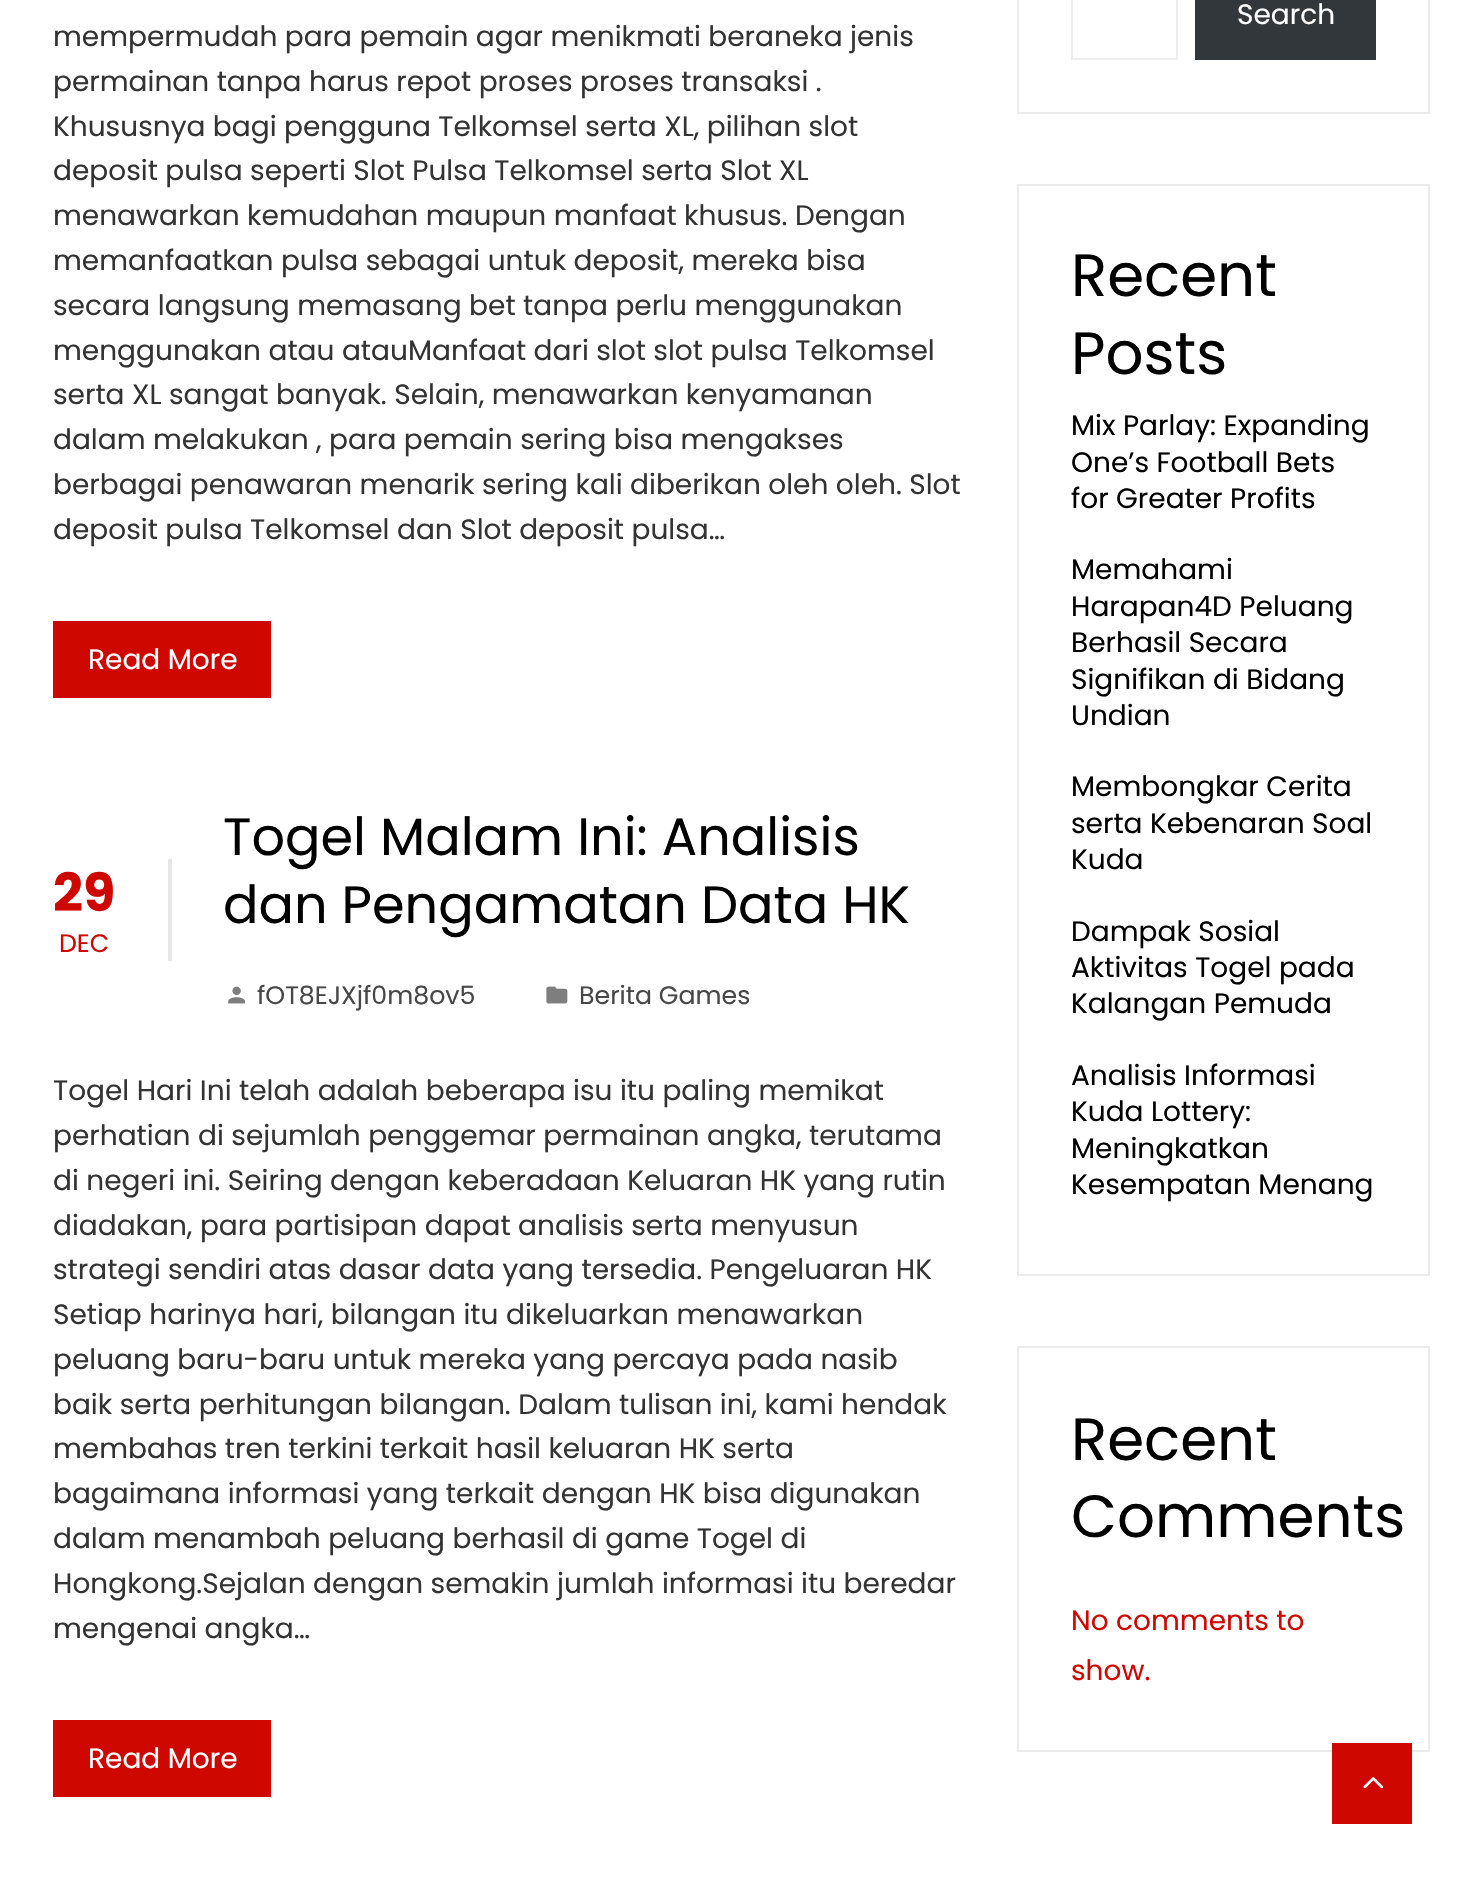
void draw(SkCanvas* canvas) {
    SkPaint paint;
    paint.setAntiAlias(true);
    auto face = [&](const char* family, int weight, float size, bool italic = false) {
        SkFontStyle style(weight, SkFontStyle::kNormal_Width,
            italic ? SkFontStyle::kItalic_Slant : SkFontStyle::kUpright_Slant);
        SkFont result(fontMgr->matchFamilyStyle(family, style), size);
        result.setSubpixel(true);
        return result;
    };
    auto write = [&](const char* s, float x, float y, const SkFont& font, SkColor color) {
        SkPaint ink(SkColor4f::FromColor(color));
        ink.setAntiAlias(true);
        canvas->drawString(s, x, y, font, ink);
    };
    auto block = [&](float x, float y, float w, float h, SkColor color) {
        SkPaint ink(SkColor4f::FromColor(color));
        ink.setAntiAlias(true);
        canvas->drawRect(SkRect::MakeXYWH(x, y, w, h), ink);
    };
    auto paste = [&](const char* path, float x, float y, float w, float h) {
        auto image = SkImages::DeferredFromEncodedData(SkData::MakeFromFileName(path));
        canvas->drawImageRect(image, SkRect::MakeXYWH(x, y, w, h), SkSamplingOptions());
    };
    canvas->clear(SK_ColorWHITE);
    auto kFont1 = face("Poppins", 400, 28);
    write("mempermudah para pemain agar menikmati beraneka jenis", 53, 46, kFont1, SkColorSetRGB(51, 51, 51));
    write("permainan tanpa harus repot proses proses transaksi .", 53, 91, kFont1, SkColorSetRGB(51, 51, 51));
    write("Khususnya bagi pengguna Telkomsel serta XL, pilihan slot", 53, 136, kFont1, SkColorSetRGB(51, 51, 51));
    write("deposit pulsa seperti Slot Pulsa Telkomsel serta Slot XL", 53, 180, kFont1, SkColorSetRGB(51, 51, 51));
    write("menawarkan kemudahan maupun manfaat khusus. Dengan", 53, 225, kFont1, SkColorSetRGB(51, 51, 51));
    write("memanfaatkan pulsa sebagai untuk deposit, mereka bisa", 53, 270, kFont1, SkColorSetRGB(51, 51, 51));
    write("secara langsung memasang bet tanpa perlu menggunakan", 53, 315, kFont1, SkColorSetRGB(51, 51, 51));
    write("menggunakan atau atauManfaat dari slot slot pulsa Telkomsel", 53, 360, kFont1, SkColorSetRGB(51, 51, 51));
    write("serta XL sangat banyak. Selain, menawarkan kenyamanan", 53, 404, kFont1, SkColorSetRGB(51, 51, 51));
    write("dalam melakukan , para pemain sering bisa mengakses", 53, 449, kFont1, SkColorSetRGB(51, 51, 51));
    write("berbagai penawaran menarik sering kali diberikan oleh oleh. Slot", 53, 494, kFont1, SkColorSetRGB(51, 51, 51));
    write("deposit pulsa Telkomsel dan Slot deposit pulsa…", 53, 539, kFont1, SkColorSetRGB(51, 51, 51));
    block(53, 621, 218, 77, SkColorSetRGB(207, 7, 1));
    write("Read More", 88, 669, kFont1, SK_ColorWHITE);
    block(168, 859, 4, 102, SkColorSetRGB(230, 230, 230));
    auto kFont2 = face("Poppins", 700, 52.5f);
    write("29", 53, 911, kFont2, SkColorSetRGB(207, 7, 1));
    auto kFont3 = face("Poppins", 400, 25.25f);
    write("DEC", 59, 952, kFont3, SkColorSetRGB(207, 7, 1));
    auto kFont4 = face("Poppins", 400, 52.5f);
    write("Togel Malam Ini: Analisis", 223, 855, kFont4, SK_ColorBLACK);
    write("dan Pengamatan Data HK", 223, 923, kFont4, SK_ColorBLACK);
    paste("pic1.png", 228, 986, 17, 18);
    write("fOT8EJXjf0m8ov5", 257, 1004, kFont3, SkColorSetRGB(71, 71, 71));
    paste("pic2.png", 546, 986, 22, 18);
    write("Berita Games", 579, 1004, kFont3, SkColorSetRGB(71, 71, 71));
    write("Togel Hari Ini telah adalah beberapa isu itu paling memikat", 53, 1100, kFont1, SkColorSetRGB(51, 51, 51));
    write("perhatian di sejumlah penggemar permainan angka, terutama", 53, 1145, kFont1, SkColorSetRGB(51, 51, 51));
    write("di negeri ini. Seiring dengan keberadaan Keluaran HK yang rutin", 53, 1190, kFont1, SkColorSetRGB(51, 51, 51));
    write("diadakan, para partisipan dapat analisis serta menyusun", 53, 1235, kFont1, SkColorSetRGB(51, 51, 51));
    write("strategi sendiri atas dasar data yang tersedia. Pengeluaran HK", 53, 1279, kFont1, SkColorSetRGB(51, 51, 51));
    write("Setiap harinya hari, bilangan itu dikeluarkan menawarkan", 53, 1324, kFont1, SkColorSetRGB(51, 51, 51));
    write("peluang baru-baru untuk mereka yang percaya pada nasib", 53, 1369, kFont1, SkColorSetRGB(51, 51, 51));
    write("baik serta perhitungan bilangan. Dalam tulisan ini, kami hendak", 53, 1414, kFont1, SkColorSetRGB(51, 51, 51));
    write("membahas tren terkini terkait hasil keluaran HK serta", 53, 1458, kFont1, SkColorSetRGB(51, 51, 51));
    write("bagaimana informasi yang terkait dengan HK bisa digunakan", 53, 1503, kFont1, SkColorSetRGB(51, 51, 51));
    write("dalam menambah peluang berhasil di game Togel di", 53, 1548, kFont1, SkColorSetRGB(51, 51, 51));
    write("Hongkong.Sejalan dengan semakin jumlah informasi itu beredar", 53, 1593, kFont1, SkColorSetRGB(51, 51, 51));
    write("mengenai angka…", 53, 1638, kFont1, SkColorSetRGB(51, 51, 51));
    block(53, 1720, 218, 77, SkColorSetRGB(207, 7, 1));
    write("Read More", 88, 1768, kFont1, SK_ColorWHITE);
    paint.setStyle(SkPaint::kStroke_Style);
    paint.setStrokeWidth(2);
    paint.setColor(SkColorSetRGB(235, 235, 235));
    canvas->drawRect(SkRect::MakeXYWH(1018, -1, 411, 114), paint);
    paint.setColor(SkColorSetRGB(238, 238, 238));
    canvas->drawRect(SkRect::MakeXYWH(1072, -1, 105, 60), paint);
    block(1195, 0, 181, 60, SkColorSetRGB(50, 55, 60));
    write("Search", 1237, 24, kFont1, SK_ColorWHITE);
    paint.setColor(SkColorSetRGB(235, 235, 235));
    canvas->drawRect(SkRect::MakeXYWH(1018, 185, 411, 1090), paint);
    auto kFont5 = face("Poppins", 400, 59.5f);
    write("Recent", 1071, 296, kFont5, SK_ColorBLACK);
    write("Posts", 1071, 374, kFont5, SK_ColorBLACK);
    write("Mix Parlay: Expanding", 1071, 435, kFont1, SK_ColorBLACK);
    write("One’s Football Bets", 1071, 472, kFont1, SK_ColorBLACK);
    write("for Greater Profits", 1071, 508, kFont1, SK_ColorBLACK);
    write("Memahami", 1071, 579, kFont1, SK_ColorBLACK);
    write("Harapan4D Peluang", 1071, 616, kFont1, SK_ColorBLACK);
    write("Berhasil Secara", 1071, 652, kFont1, SK_ColorBLACK);
    write("Signifikan di Bidang", 1071, 689, kFont1, SK_ColorBLACK);
    write("Undian", 1071, 725, kFont1, SK_ColorBLACK);
    write("Membongkar Cerita", 1071, 796, kFont1, SK_ColorBLACK);
    write("serta Kebenaran Soal", 1071, 833, kFont1, SK_ColorBLACK);
    write("Kuda", 1071, 869, kFont1, SK_ColorBLACK);
    write("Dampak Sosial", 1071, 941, kFont1, SK_ColorBLACK);
    write("Aktivitas Togel pada", 1071, 977, kFont1, SK_ColorBLACK);
    write("Kalangan Pemuda", 1071, 1013, kFont1, SK_ColorBLACK);
    write("Analisis Informasi", 1071, 1085, kFont1, SK_ColorBLACK);
    write("Kuda Lottery:", 1071, 1121, kFont1, SK_ColorBLACK);
    write("Meningkatkan", 1071, 1158, kFont1, SK_ColorBLACK);
    write("Kesempatan Menang", 1071, 1194, kFont1, SK_ColorBLACK);
    canvas->drawRect(SkRect::MakeXYWH(1018, 1347, 411, 404), paint);
    write("Recent", 1071, 1460, kFont5, SK_ColorBLACK);
    write("Comments", 1071, 1537, kFont5, SK_ColorBLACK);
    write("No comments to", 1071, 1630, kFont1, SkColorSetRGB(207, 7, 1));
    write("show.", 1071, 1680, kFont1, SkColorSetRGB(207, 7, 1));
    block(1332, 1743, 80, 81, SkColorSetRGB(207, 7, 1));
    paste("pic3.png", 1363, 1777, 21, 12);
}
